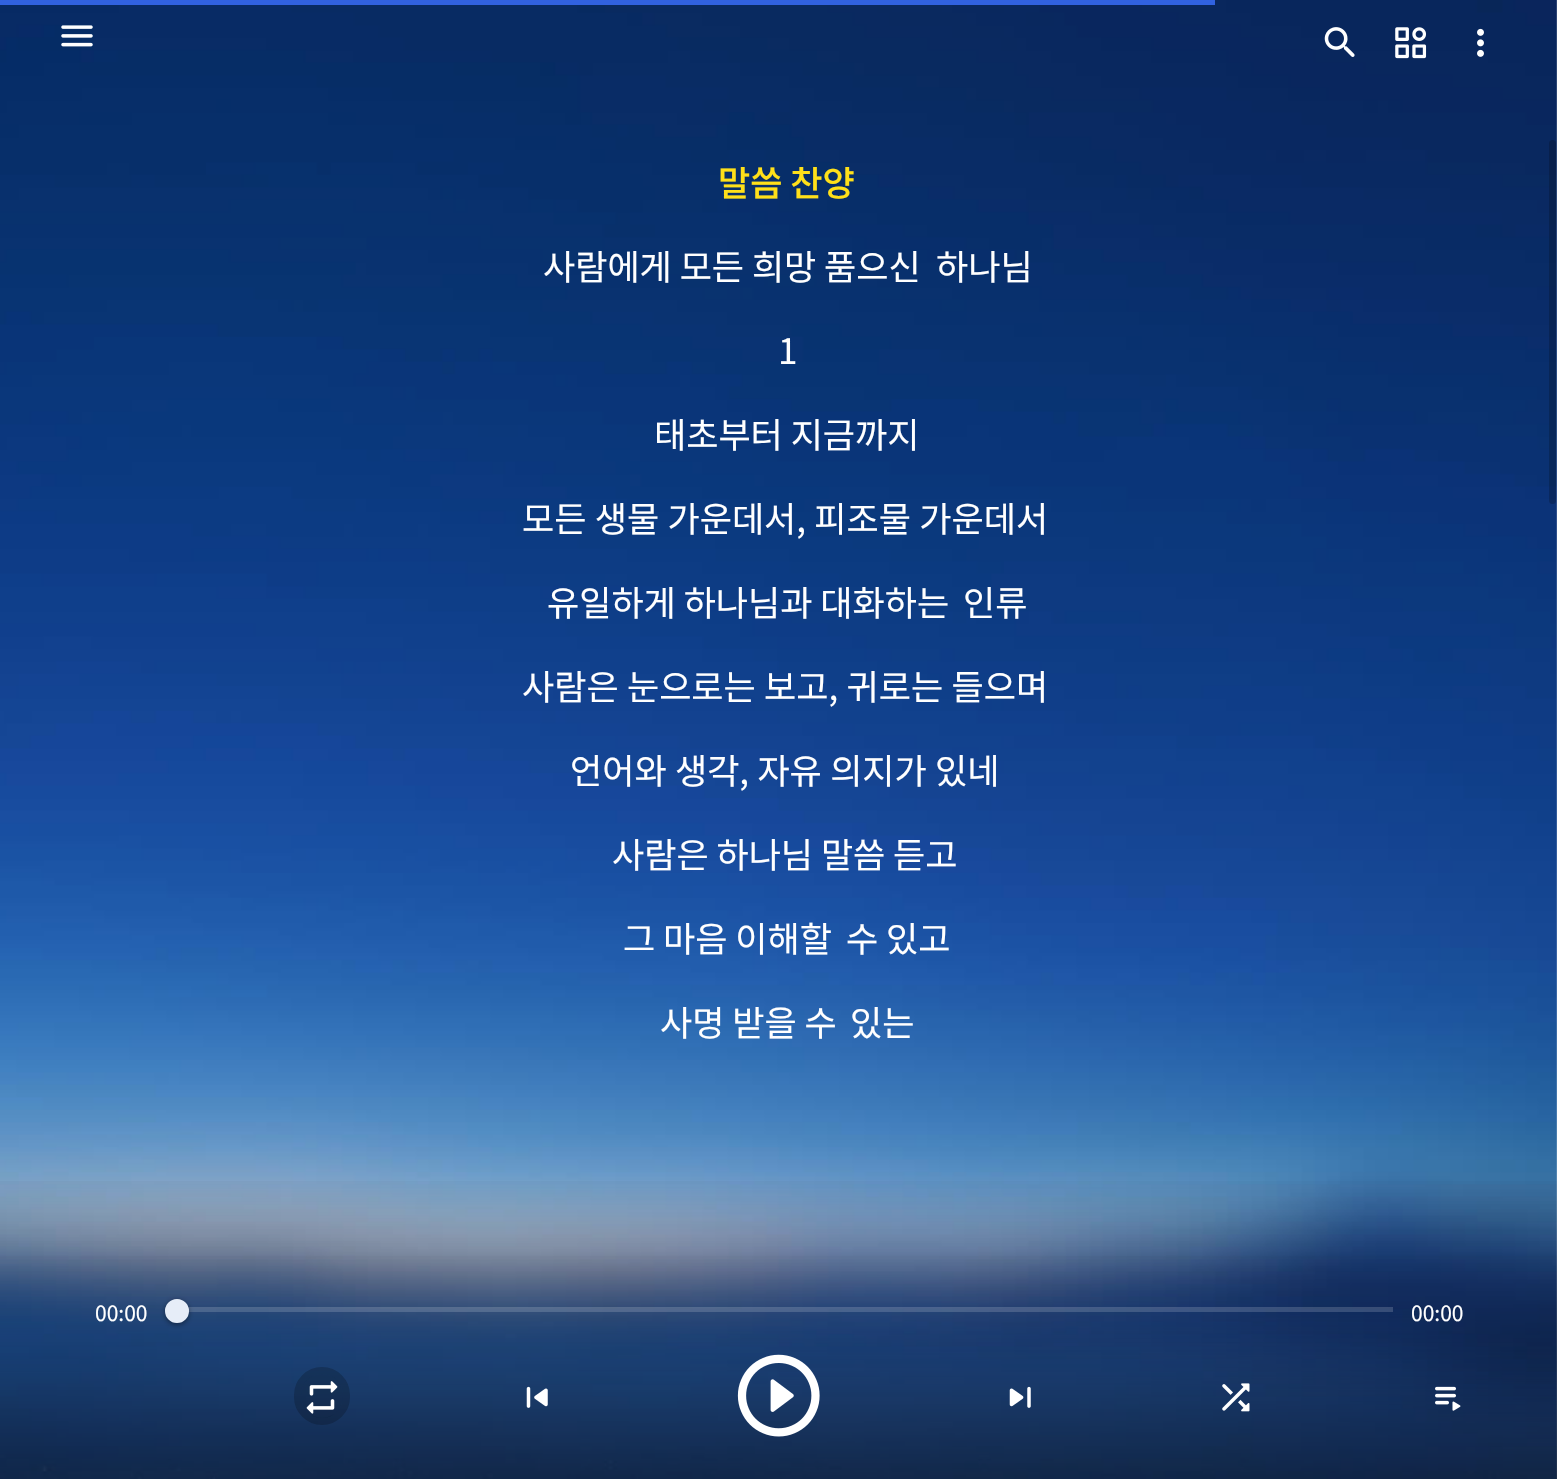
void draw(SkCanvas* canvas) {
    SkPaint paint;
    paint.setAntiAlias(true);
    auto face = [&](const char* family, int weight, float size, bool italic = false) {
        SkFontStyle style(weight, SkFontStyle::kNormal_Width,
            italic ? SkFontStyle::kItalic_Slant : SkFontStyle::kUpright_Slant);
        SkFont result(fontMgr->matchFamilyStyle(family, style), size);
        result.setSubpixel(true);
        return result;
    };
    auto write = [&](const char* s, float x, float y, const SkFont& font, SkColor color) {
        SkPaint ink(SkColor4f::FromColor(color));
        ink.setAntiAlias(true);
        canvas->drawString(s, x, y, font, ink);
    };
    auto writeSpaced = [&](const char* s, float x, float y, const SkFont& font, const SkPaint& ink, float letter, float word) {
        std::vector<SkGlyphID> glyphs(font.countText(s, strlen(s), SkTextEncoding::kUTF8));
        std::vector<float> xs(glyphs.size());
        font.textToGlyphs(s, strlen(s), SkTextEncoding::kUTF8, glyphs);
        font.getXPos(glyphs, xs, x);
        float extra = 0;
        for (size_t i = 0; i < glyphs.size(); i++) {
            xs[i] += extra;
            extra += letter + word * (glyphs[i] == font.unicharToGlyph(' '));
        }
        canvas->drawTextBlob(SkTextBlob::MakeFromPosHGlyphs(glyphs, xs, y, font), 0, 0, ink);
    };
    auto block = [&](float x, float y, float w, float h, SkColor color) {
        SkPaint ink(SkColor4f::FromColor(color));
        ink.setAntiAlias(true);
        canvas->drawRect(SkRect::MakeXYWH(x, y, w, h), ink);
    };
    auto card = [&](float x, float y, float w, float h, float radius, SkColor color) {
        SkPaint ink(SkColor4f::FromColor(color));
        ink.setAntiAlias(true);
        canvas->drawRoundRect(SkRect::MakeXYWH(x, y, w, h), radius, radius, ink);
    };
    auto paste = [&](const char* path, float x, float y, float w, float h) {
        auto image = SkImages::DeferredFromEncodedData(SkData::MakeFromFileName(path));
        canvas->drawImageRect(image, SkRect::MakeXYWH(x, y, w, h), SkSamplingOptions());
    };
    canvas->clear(SK_ColorWHITE);
    paste("pic1.png", 0, 0, 1557, 1479);
    block(0, 0, 1215, 5, SkColorSetRGB(49, 98, 224));
    paste("pic2.png", 61, 25, 32, 22);
    paste("pic3.png", 1324, 27, 31, 30);
    paste("pic4.png", 1395, 27, 32, 32);
    paste("pic5.png", 1477, 28, 7, 29);
    auto kFont1 = face("Noto Sans KR", 500, 35);
    write("말씀 찬양", 718, 196, kFont1, SkColorSetRGB(255, 224, 25));
    auto kFont2 = face("Noto Sans KR", 400, 35);
    write("사람에게 모든 희망 품으신", 543, 280, kFont2, SK_ColorWHITE);
    write("하나님", 936, 280, kFont2, SK_ColorWHITE);
    write("1", 778, 364, kFont2, SK_ColorWHITE);
    write("태초부터 지금까지", 654, 448, kFont2, SK_ColorWHITE);
    paint.setColor(SK_ColorWHITE);
    writeSpaced("모든 생물 가운데서, 피조물 가운데서", 522, 532, kFont2, paint, 0, 0.5f);
    write("유일하게 하나님과 대화하는", 547, 616, kFont2, SK_ColorWHITE);
    write("인류", 963, 616, kFont2, SK_ColorWHITE);
    writeSpaced("사람은 눈으로는 보고, 귀로는 들으며", 522, 700, kFont2, paint, 0, 0.5f);
    writeSpaced("언어와 생각, 자유 의지가 있네", 570, 784, kFont2, paint, 0, 0.5f);
    write("사람은 하나님 말씀 듣고", 612, 868, kFont2, SK_ColorWHITE);
    write("그 마음 이해할", 623, 952, kFont2, SK_ColorWHITE);
    write("수 있고", 846, 952, kFont2, SK_ColorWHITE);
    write("사명 받을 수", 660, 1036, kFont2, SK_ColorWHITE);
    write("있는", 850, 1036, kFont2, SK_ColorWHITE);
    card(1549, 140, 7, 364, 3.5f, SkColorSetARGB(51, 0, 0, 0));
    {
        const SkColor colors[] = {SkColorSetARGB(0, 0, 0, 0), SkColorSetARGB(66, 0, 0, 0)};
        const float stops[] = {0, 1};
        const SkPoint ends[] = {{779, 1236}, {779, 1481}};
        paint.setShader(SkGradientShader::MakeLinear(ends, colors, stops, 2, SkTileMode::kClamp));
        paint.setAlpha(255);
    }
    canvas->drawRect(SkRect::MakeXYWH(0, 1256, 1557, 223), paint);
    {
        const SkColor colors[] = {SkColorSetARGB(0, 0, 0, 0), SkColorSetARGB(112, 0, 0, 0)};
        const float stops[] = {0, 1};
        const SkPoint ends[] = {{779, 1166}, {779, 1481}};
        paint.setShader(SkGradientShader::MakeLinear(ends, colors, stops, 2, SkTileMode::kClamp));
        paint.setAlpha(255);
    }
    canvas->drawRect(SkRect::MakeXYWH(0, 1181, 1557, 298), paint);
    auto kFont3 = face("Noto Sans KR", 400, 21);
    write("00:00", 95, 1321, kFont3, SK_ColorWHITE);
    block(165, 1307, 1228, 5, SkColorSetARGB(41, 255, 255, 255));
    paint.setShader(nullptr);
    paint.setColor(SkColorSetARGB(97, 0, 0, 0));
    paint.setMaskFilter(SkMaskFilter::MakeBlur(kNormal_SkBlurStyle, 2.5f));
    canvas->drawRoundRect(SkRect::MakeXYWH(165, 1300, 24, 25), 12, 12, paint);
    paint.setMaskFilter(nullptr);
    paint.setColor(SK_ColorWHITE);
    canvas->drawCircle(177, 1311, 9.5f, paint);
    paint.setStyle(SkPaint::kStroke_Style);
    paint.setStrokeWidth(5);
    canvas->drawCircle(177, 1311, 9.5f, paint);
    paint.setStyle(SkPaint::kFill_Style);
    paint.setColor(SkColorSetARGB(26, 5, 80, 191));
    canvas->drawCircle(177, 1311, 12, paint);
    write("00:00", 1411, 1321, kFont3, SK_ColorWHITE);
    paint.setStyle(SkPaint::kStroke_Style);
    paint.setStrokeWidth(7);
    paint.setColor(SkColorSetARGB(51, 0, 0, 0));
    canvas->drawRoundRect(SkRect::MakeXYWH(297.5f, 1370.5f, 49, 51), 24.5f, 24.5f, paint);
    card(301, 1374, 42, 44, 21, SkColorSetARGB(51, 0, 0, 0));
    paste("pic6.png", 306, 1381, 32, 33);
    paste("pic7.png", 526, 1386, 22, 22);
    paste("pic8.png", 737, 1354, 83, 83);
    paste("pic9.png", 1009, 1386, 22, 22);
    paste("pic10.png", 1222, 1383, 28, 29);
    paste("pic11.png", 1435, 1386, 26, 25);
}
